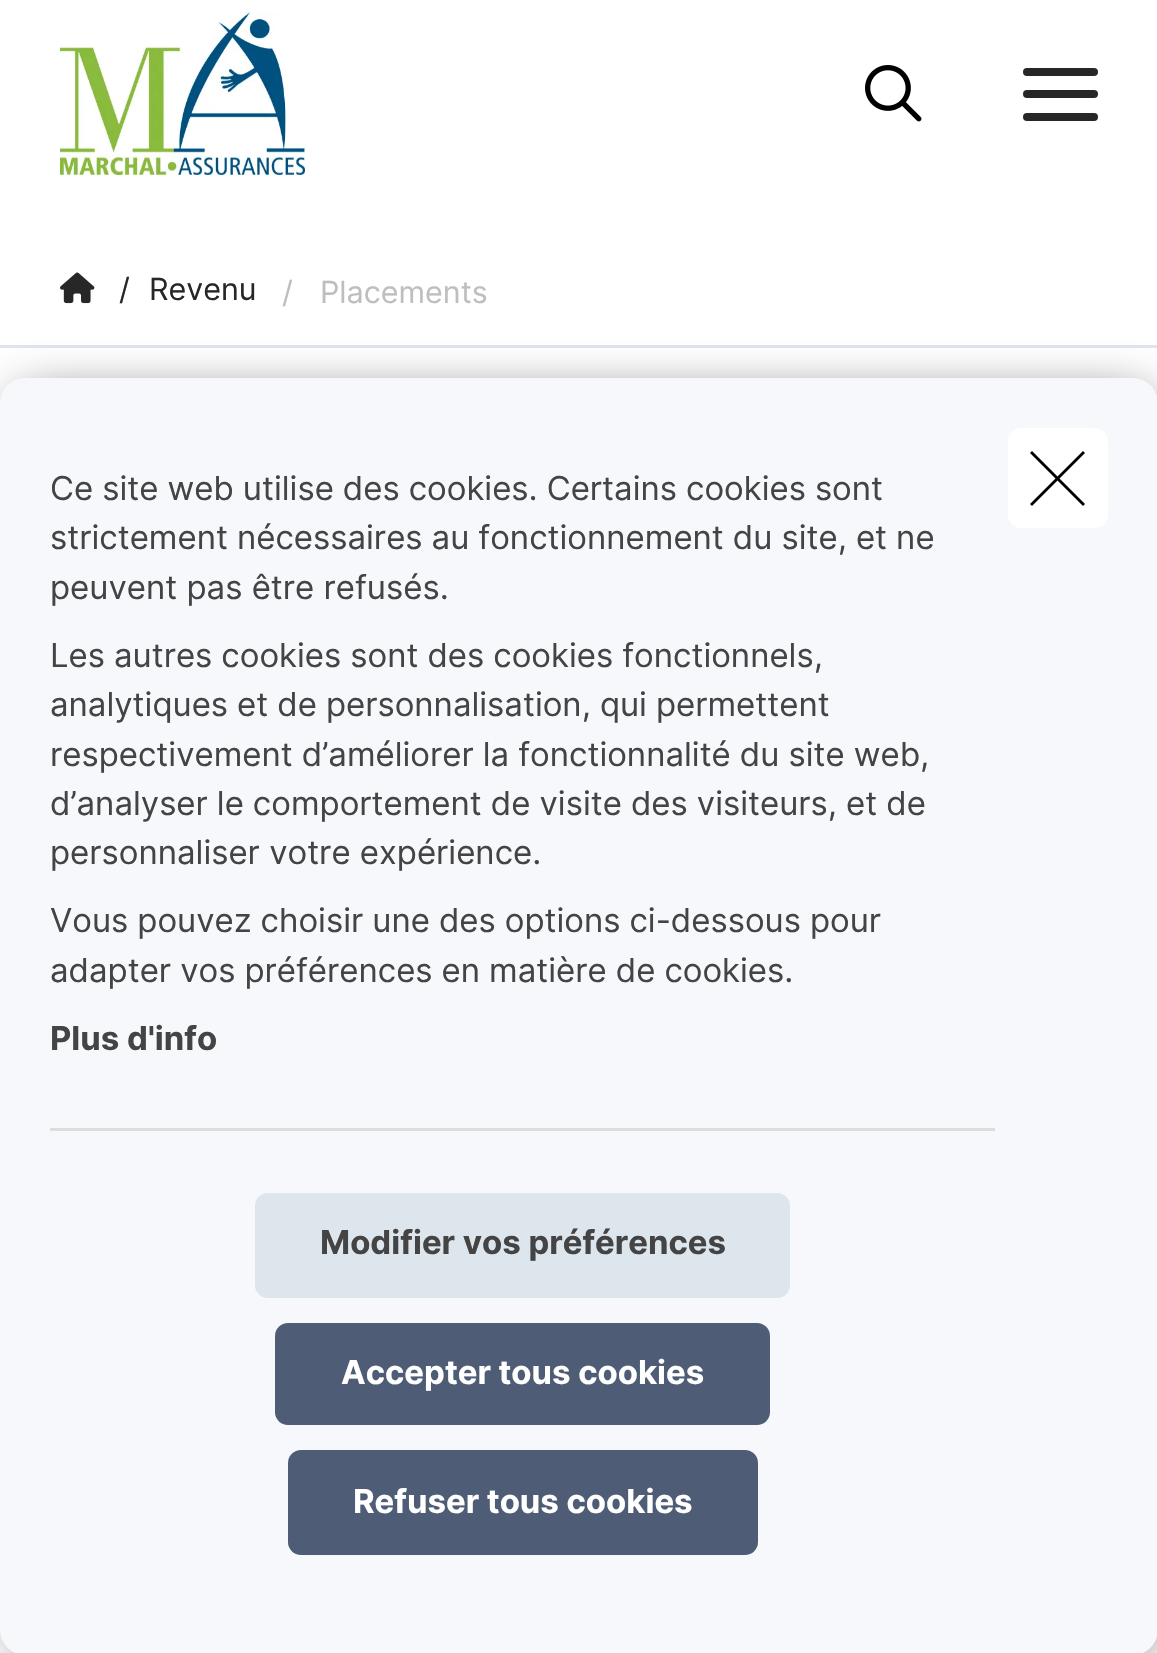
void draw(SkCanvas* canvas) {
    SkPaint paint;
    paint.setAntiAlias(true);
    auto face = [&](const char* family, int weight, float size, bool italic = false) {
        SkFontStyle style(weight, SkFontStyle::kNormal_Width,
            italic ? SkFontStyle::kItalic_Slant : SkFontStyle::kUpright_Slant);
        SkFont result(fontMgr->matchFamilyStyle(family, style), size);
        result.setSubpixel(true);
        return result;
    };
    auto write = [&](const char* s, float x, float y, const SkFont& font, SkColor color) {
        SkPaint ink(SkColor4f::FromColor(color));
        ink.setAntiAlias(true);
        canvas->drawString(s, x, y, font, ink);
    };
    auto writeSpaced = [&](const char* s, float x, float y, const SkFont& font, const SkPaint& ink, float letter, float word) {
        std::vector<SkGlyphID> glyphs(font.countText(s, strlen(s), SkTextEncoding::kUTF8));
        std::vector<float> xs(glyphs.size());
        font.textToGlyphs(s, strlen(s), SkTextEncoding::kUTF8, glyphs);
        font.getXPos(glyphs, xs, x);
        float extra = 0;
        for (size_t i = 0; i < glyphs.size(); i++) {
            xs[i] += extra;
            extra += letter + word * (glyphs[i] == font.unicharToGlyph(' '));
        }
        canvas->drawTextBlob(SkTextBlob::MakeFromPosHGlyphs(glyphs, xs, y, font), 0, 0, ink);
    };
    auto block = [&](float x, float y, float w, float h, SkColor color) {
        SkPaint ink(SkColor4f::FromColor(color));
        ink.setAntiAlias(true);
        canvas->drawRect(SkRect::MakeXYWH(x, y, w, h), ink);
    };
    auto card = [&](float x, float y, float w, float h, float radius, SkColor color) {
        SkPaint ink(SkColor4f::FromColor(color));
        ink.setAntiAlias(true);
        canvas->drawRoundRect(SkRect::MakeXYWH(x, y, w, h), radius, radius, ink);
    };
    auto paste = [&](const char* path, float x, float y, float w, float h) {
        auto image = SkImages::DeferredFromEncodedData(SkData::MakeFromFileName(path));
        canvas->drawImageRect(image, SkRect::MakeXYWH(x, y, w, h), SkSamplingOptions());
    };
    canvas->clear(SK_ColorWHITE);
    paste("pic1.png", 60, 12, 245, 163);
    paste("pic2.png", 865, 65, 57, 57);
    card(1023, 90, 75, 8, 4, SkColorSetRGB(39, 39, 39));
    card(1023, 68, 75, 8, 4, SkColorSetRGB(39, 39, 39));
    card(1023, 113, 75, 8, 4, SkColorSetRGB(39, 39, 39));
    block(0, 345, 1157, 3, SkColorSetRGB(222, 229, 236));
    paste("pic3.png", 60, 272, 35, 32);
    auto kFont1 = face("Inter", 400, 30.5f);
    write("/", 119, 300, kFont1, SkColorSetRGB(39, 39, 39));
    write("Revenu", 149, 300, kFont1, SkColorSetRGB(39, 39, 39));
    write("/", 282, 303, kFont1, SkColorSetRGB(190, 190, 190));
    write("Placements", 320, 303, kFont1, SkColorSetRGB(190, 190, 190));
    paint.setColor(SkColorSetARGB(191, 0, 0, 0));
    paint.setMaskFilter(SkMaskFilter::MakeBlur(kNormal_SkBlurStyle, 26));
    canvas->drawRoundRect(SkRect::MakeXYWH(20, 400, 1128, 1248), 10, 10, paint);
    paint.setMaskFilter(nullptr);
    card(0, 378, 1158, 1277, 25, SkColorSetRGB(246, 248, 252));
    block(50, 1128, 945, 3, SkColorSetRGB(221, 221, 221));
    auto kFont2 = face("Inter", 400, 32.95f);
    paint.setColor(SkColorSetRGB(68, 68, 68));
    writeSpaced("Ce site web utilise des cookies. Certains cookies sont", 50, 500, kFont2, paint, 0, -0.25f);
    writeSpaced("strictement nécessaires au fonctionnement du site, et ne", 50, 549, kFont2, paint, 0, -0.25f);
    write("peuvent pas être refusés.", 50, 599, kFont2, SkColorSetRGB(68, 68, 68));
    writeSpaced("Les autres cookies sont des cookies fonctionnels,", 50, 667, kFont2, paint, 0, -0.25f);
    writeSpaced("analytiques et de personnalisation, qui permettent", 50, 716, kFont2, paint, 0, -0.25f);
    writeSpaced("respectivement d’améliorer la fonctionnalité du site web,", 50, 766, kFont2, paint, 0, -0.25f);
    writeSpaced("d’analyser le comportement de visite des visiteurs, et de", 50, 815, kFont2, paint, 0, -0.25f);
    write("personnaliser votre expérience.", 50, 864, kFont2, SkColorSetRGB(68, 68, 68));
    writeSpaced("Vous pouvez choisir une des options ci-dessous pour", 50, 932, kFont2, paint, 0, -0.25f);
    writeSpaced("adapter vos préférences en matière de cookies.", 50, 982, kFont2, paint, 0, -0.25f);
    auto kFont3 = face("Inter", 700, 32.95f);
    write("Plus d'info", 50, 1050, kFont3, SkColorSetRGB(68, 68, 68));
    card(255, 1193, 535, 105, 13, SkColorSetRGB(221, 229, 237));
    write("Modifier vos préférences", 320, 1254, kFont3, SkColorSetRGB(68, 68, 68));
    card(275, 1323, 495, 102, 13, SkColorSetRGB(78, 92, 118));
    write("Accepter tous cookies", 341, 1384, kFont3, SK_ColorWHITE);
    card(288, 1450, 470, 105, 13, SkColorSetRGB(78, 92, 118));
    write("Refuser tous cookies", 353, 1513, kFont3, SK_ColorWHITE);
    card(1008, 428, 100, 100, 13, SK_ColorWHITE);
    paint.setColor(SK_ColorBLACK);
    canvas->drawPath(SkPathBuilder().moveTo(1032, 451).lineTo(1085, 504).lineTo(1083, 506).lineTo(1030, 453).close().detach(), paint);
    canvas->drawPath(SkPathBuilder().moveTo(1030, 504).lineTo(1083, 451).lineTo(1085, 453).lineTo(1032, 506).close().detach(), paint);
}
